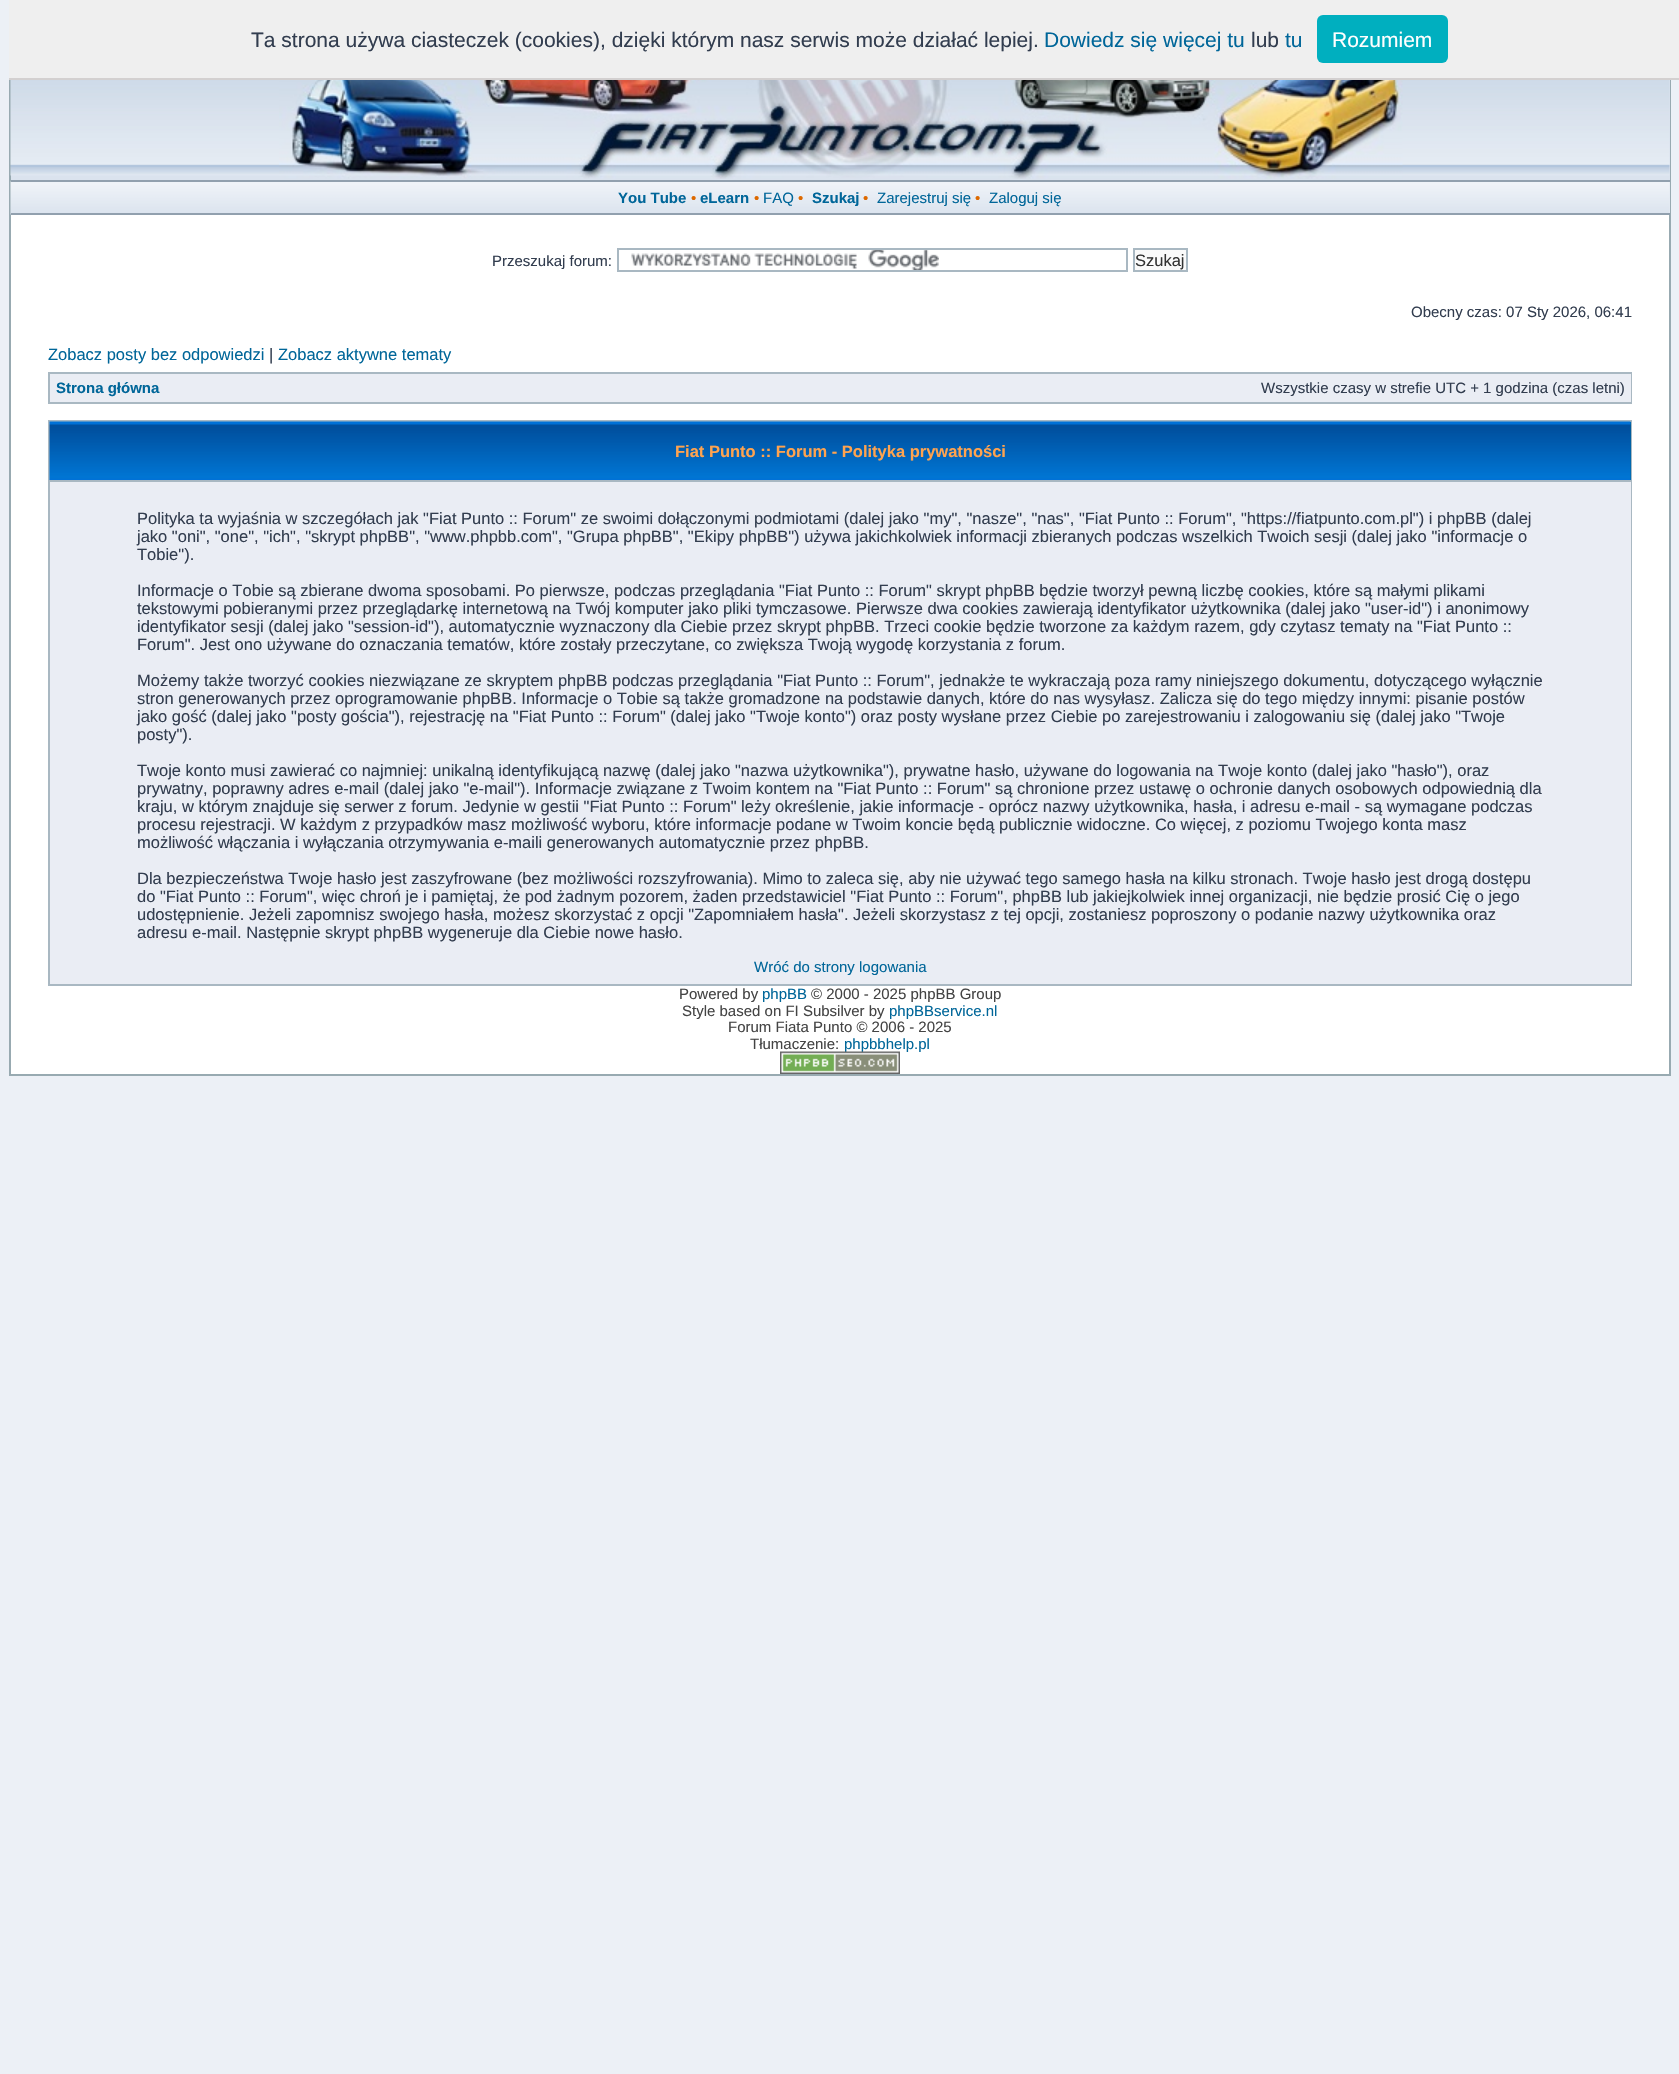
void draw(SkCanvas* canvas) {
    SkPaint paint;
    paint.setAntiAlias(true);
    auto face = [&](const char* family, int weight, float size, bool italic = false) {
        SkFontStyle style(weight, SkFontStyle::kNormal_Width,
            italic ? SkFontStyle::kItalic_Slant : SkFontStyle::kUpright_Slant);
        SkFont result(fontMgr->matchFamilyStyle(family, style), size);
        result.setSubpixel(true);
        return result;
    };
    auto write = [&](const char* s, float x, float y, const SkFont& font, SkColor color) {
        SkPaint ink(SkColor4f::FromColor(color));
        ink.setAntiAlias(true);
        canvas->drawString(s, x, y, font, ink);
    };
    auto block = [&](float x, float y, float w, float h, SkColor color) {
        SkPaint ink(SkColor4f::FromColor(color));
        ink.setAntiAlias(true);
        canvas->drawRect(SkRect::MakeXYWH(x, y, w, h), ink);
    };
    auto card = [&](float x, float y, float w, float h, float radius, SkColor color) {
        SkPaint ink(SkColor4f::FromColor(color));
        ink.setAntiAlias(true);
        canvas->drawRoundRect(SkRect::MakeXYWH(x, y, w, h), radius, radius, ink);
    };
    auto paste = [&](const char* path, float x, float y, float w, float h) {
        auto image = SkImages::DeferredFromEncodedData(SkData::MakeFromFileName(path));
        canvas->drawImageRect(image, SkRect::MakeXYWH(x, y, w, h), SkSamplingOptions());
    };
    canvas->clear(SkColorSetRGB(236, 240, 246));
    block(11, 215, 1658, 859, SK_ColorWHITE);
    paint.setStyle(SkPaint::kStroke_Style);
    paint.setStrokeWidth(2);
    paint.setColor(SkColorSetRGB(152, 170, 177));
    canvas->drawRect(SkRect::MakeXYWH(10, 10, 1660, 1065), paint);
    block(9, 0, 1670, 78, SkColorSetRGB(239, 239, 239));
    block(9, 78, 1670, 2, SkColorSetRGB(211, 208, 208));
    auto kFont1 = face("Liberation Sans", 400, 21);
    write("Ta strona używa ciasteczek (cookies), dzięki którym nasz serwis może działać lepiej.", 251, 47, kFont1, SkColorSetRGB(50, 61, 79));
    write("Dowiedz się więcej tu", 1044, 47, kFont1, SkColorSetRGB(0, 102, 153));
    write("lub", 1251, 47, kFont1, SkColorSetRGB(50, 61, 79));
    write("tu", 1285, 47, kFont1, SkColorSetRGB(0, 102, 153));
    card(1317, 15, 131, 48, 6, SkColorSetRGB(0, 175, 191));
    write("Rozumiem", 1332, 47, kFont1, SK_ColorWHITE);
    block(11, 80, 1659, 100, SkColorSetRGB(219, 227, 238));
    paste("pic1.png", 10, 80, 1660, 96);
    paste("pic2.png", 279, 80, 1124, 99);
    block(1669, 182, 1, 31, SkColorSetRGB(229, 235, 243));
    paste("pic3.png", 10, 181, 1660, 34);
    block(11, 180, 1659, 2, SkColorSetRGB(145, 160, 174));
    block(11, 213, 1659, 2, SkColorSetRGB(145, 160, 174));
    auto kFont2 = face("Liberation Sans", 700, 15);
    write("You Tube", 618, 203, kFont2, SkColorSetRGB(0, 102, 153));
    auto kFont3 = face("Liberation Sans", 400, 15);
    write("•", 691, 203, kFont3, SkColorSetRGB(221, 105, 0));
    write("eLearn", 700, 203, kFont2, SkColorSetRGB(0, 102, 153));
    write("•", 754, 203, kFont3, SkColorSetRGB(221, 105, 0));
    write("FAQ", 763, 203, kFont3, SkColorSetRGB(0, 102, 153));
    write("•", 798, 203, kFont3, SkColorSetRGB(221, 105, 0));
    write("Szukaj", 812, 203, kFont2, SkColorSetRGB(0, 102, 153));
    write("•", 863, 203, kFont3, SkColorSetRGB(221, 105, 0));
    write("Zarejestruj się", 877, 203, kFont3, SkColorSetRGB(0, 102, 153));
    write("•", 975, 203, kFont3, SkColorSetRGB(221, 105, 0));
    write("Zaloguj się", 989, 203, kFont3, SkColorSetRGB(0, 102, 153));
    write("Przeszukaj forum:", 492, 266, kFont3, SkColorSetRGB(50, 61, 79));
    paste("pic4.png", 631, 250, 308, 20);
    paint.setColor(SkColorSetRGB(169, 184, 194));
    canvas->drawRect(SkRect::MakeXYWH(618, 249, 509, 22), paint);
    paint.setStyle(SkPaint::kFill_Style);
    paint.setColor(SkColorSetRGB(250, 250, 250));
    canvas->drawRect(SkRect::MakeXYWH(1134, 249, 53, 22), paint);
    paint.setStyle(SkPaint::kStroke_Style);
    paint.setColor(SkColorSetRGB(169, 184, 194));
    canvas->drawRect(SkRect::MakeXYWH(1134, 249, 53, 22), paint);
    auto kFont4 = face("Liberation Sans", 400, 16.5f);
    write("Szukaj", 1135, 266, kFont4, SkColorSetRGB(51, 51, 51));
    write("Obecny czas: 07 Sty 2026, 06:41", 1411, 317, kFont3, SkColorSetRGB(50, 61, 79));
    write("Zobacz posty bez odpowiedzi", 48, 360, kFont4, SkColorSetRGB(0, 102, 153));
    write("|", 269, 360, kFont4, SkColorSetRGB(50, 61, 79));
    write("Zobacz aktywne tematy", 278, 360, kFont4, SkColorSetRGB(0, 102, 153));
    block(48, 372, 1584, 32, SkColorSetRGB(169, 184, 194));
    block(50, 374, 1581, 28, SkColorSetRGB(234, 237, 244));
    write("Strona główna", 56, 393, kFont2, SkColorSetRGB(0, 102, 153));
    write("Wszystkie czasy w strefie UTC + 1 godzina (czas letni)", 1261, 393, kFont3, SkColorSetRGB(50, 61, 79));
    block(48, 420, 1584, 566, SkColorSetRGB(169, 184, 194));
    block(1630, 422, 1, 58, SkColorSetRGB(0, 102, 153));
    paste("pic5.png", 49, 421, 1582, 59);
    auto kFont5 = face("Liberation Sans", 700, 16.5f);
    write("Fiat Punto :: Forum - Polityka prywatności", 675, 457, kFont5, SkColorSetRGB(255, 163, 79));
    block(50, 482, 1581, 502, SkColorSetRGB(234, 237, 244));
    write("Polityka ta wyjaśnia w szczegółach jak \"Fiat Punto :: Forum\" ze swoimi dołączonymi podmiotami (dalej jako \"my\", \"nasze\", \"nas\", \"Fiat Punto :: Forum\", \"https://fiatpunto.com.pl\") i phpBB (dalej", 137, 524, kFont4, SkColorSetRGB(50, 61, 79));
    write("jako \"oni\", \"one\", \"ich\", \"skrypt phpBB\", \"www.phpbb.com\", \"Grupa phpBB\", \"Ekipy phpBB\") używa jakichkolwiek informacji zbieranych podczas wszelkich Twoich sesji (dalej jako \"informacje o", 137, 542, kFont4, SkColorSetRGB(50, 61, 79));
    write("Tobie\").", 137, 560, kFont4, SkColorSetRGB(50, 61, 79));
    write("Informacje o Tobie są zbierane dwoma sposobami. Po pierwsze, podczas przeglądania \"Fiat Punto :: Forum\" skrypt phpBB będzie tworzył pewną liczbę cookies, które są małymi plikami", 137, 596, kFont4, SkColorSetRGB(50, 61, 79));
    write("tekstowymi pobieranymi przez przeglądarkę internetową na Twój komputer jako pliki tymczasowe. Pierwsze dwa cookies zawierają identyfikator użytkownika (dalej jako \"user-id\") i anonimowy", 137, 614, kFont4, SkColorSetRGB(50, 61, 79));
    write("identyfikator sesji (dalej jako \"session-id\"), automatycznie wyznaczony dla Ciebie przez skrypt phpBB. Trzeci cookie będzie tworzone za każdym razem, gdy czytasz tematy na \"Fiat Punto ::", 137, 632, kFont4, SkColorSetRGB(50, 61, 79));
    write("Forum\". Jest ono używane do oznaczania tematów, które zostały przeczytane, co zwiększa Twoją wygodę korzystania z forum.", 137, 650, kFont4, SkColorSetRGB(50, 61, 79));
    write("Możemy także tworzyć cookies niezwiązane ze skryptem phpBB podczas przeglądania \"Fiat Punto :: Forum\", jednakże te wykraczają poza ramy niniejszego dokumentu, dotyczącego wyłącznie", 137, 686, kFont4, SkColorSetRGB(50, 61, 79));
    write("stron generowanych przez oprogramowanie phpBB. Informacje o Tobie są także gromadzone na podstawie danych, które do nas wysyłasz. Zalicza się do tego między innymi: pisanie postów", 137, 704, kFont4, SkColorSetRGB(50, 61, 79));
    write("jako gość (dalej jako \"posty gościa\"), rejestrację na \"Fiat Punto :: Forum\" (dalej jako \"Twoje konto\") oraz posty wysłane przez Ciebie po zarejestrowaniu i zalogowaniu się (dalej jako \"Twoje", 137, 722, kFont4, SkColorSetRGB(50, 61, 79));
    write("posty\").", 137, 740, kFont4, SkColorSetRGB(50, 61, 79));
    write("Twoje konto musi zawierać co najmniej: unikalną identyfikującą nazwę (dalej jako \"nazwa użytkownika\"), prywatne hasło, używane do logowania na Twoje konto (dalej jako \"hasło\"), oraz", 137, 776, kFont4, SkColorSetRGB(50, 61, 79));
    write("prywatny, poprawny adres e-mail (dalej jako \"e-mail\"). Informacje związane z Twoim kontem na \"Fiat Punto :: Forum\" są chronione przez ustawę o ochronie danych osobowych odpowiednią dla", 137, 794, kFont4, SkColorSetRGB(50, 61, 79));
    write("kraju, w którym znajduje się serwer z forum. Jedynie w gestii \"Fiat Punto :: Forum\" leży określenie, jakie informacje - oprócz nazwy użytkownika, hasła, i adresu e-mail - są wymagane podczas", 137, 812, kFont4, SkColorSetRGB(50, 61, 79));
    write("procesu rejestracji. W każdym z przypadków masz możliwość wyboru, które informacje podane w Twoim koncie będą publicznie widoczne. Co więcej, z poziomu Twojego konta masz", 137, 830, kFont4, SkColorSetRGB(50, 61, 79));
    write("możliwość włączania i wyłączania otrzymywania e-maili generowanych automatycznie przez phpBB.", 137, 848, kFont4, SkColorSetRGB(50, 61, 79));
    write("Dla bezpieczeństwa Twoje hasło jest zaszyfrowane (bez możliwości rozszyfrowania). Mimo to zaleca się, aby nie używać tego samego hasła na kilku stronach. Twoje hasło jest drogą dostępu", 137, 884, kFont4, SkColorSetRGB(50, 61, 79));
    write("do \"Fiat Punto :: Forum\", więc chroń je i pamiętaj, że pod żadnym pozorem, żaden przedstawiciel \"Fiat Punto :: Forum\", phpBB lub jakiejkolwiek innej organizacji, nie będzie prosić Cię o jego", 137, 902, kFont4, SkColorSetRGB(50, 61, 79));
    write("udostępnienie. Jeżeli zapomnisz swojego hasła, możesz skorzystać z opcji \"Zapomniałem hasła\". Jeżeli skorzystasz z tej opcji, zostaniesz poproszony o podanie nazwy użytkownika oraz", 137, 920, kFont4, SkColorSetRGB(50, 61, 79));
    write("adresu e-mail. Następnie skrypt phpBB wygeneruje dla Ciebie nowe hasło.", 137, 938, kFont4, SkColorSetRGB(50, 61, 79));
    write("Wróć do strony logowania", 754, 972, kFont3, SkColorSetRGB(0, 102, 153));
    write("Powered by", 679, 999, kFont3, SkColorSetRGB(68, 68, 68));
    write("phpBB", 762, 999, kFont3, SkColorSetRGB(0, 102, 153));
    write("© 2000 - 2025 phpBB Group", 811, 999, kFont3, SkColorSetRGB(68, 68, 68));
    write("Style based on FI Subsilver by", 682, 1016, kFont3, SkColorSetRGB(68, 68, 68));
    write("phpBBservice.nl", 889, 1016, kFont3, SkColorSetRGB(0, 102, 153));
    write("Forum Fiata Punto © 2006 - 2025", 728, 1032, kFont3, SkColorSetRGB(68, 68, 68));
    write("Tłumaczenie:", 750, 1049, kFont3, SkColorSetRGB(68, 68, 68));
    write("phpbbhelp.pl", 844, 1049, kFont3, SkColorSetRGB(0, 102, 153));
    paste("pic6.png", 780, 1051, 120, 23);
}
